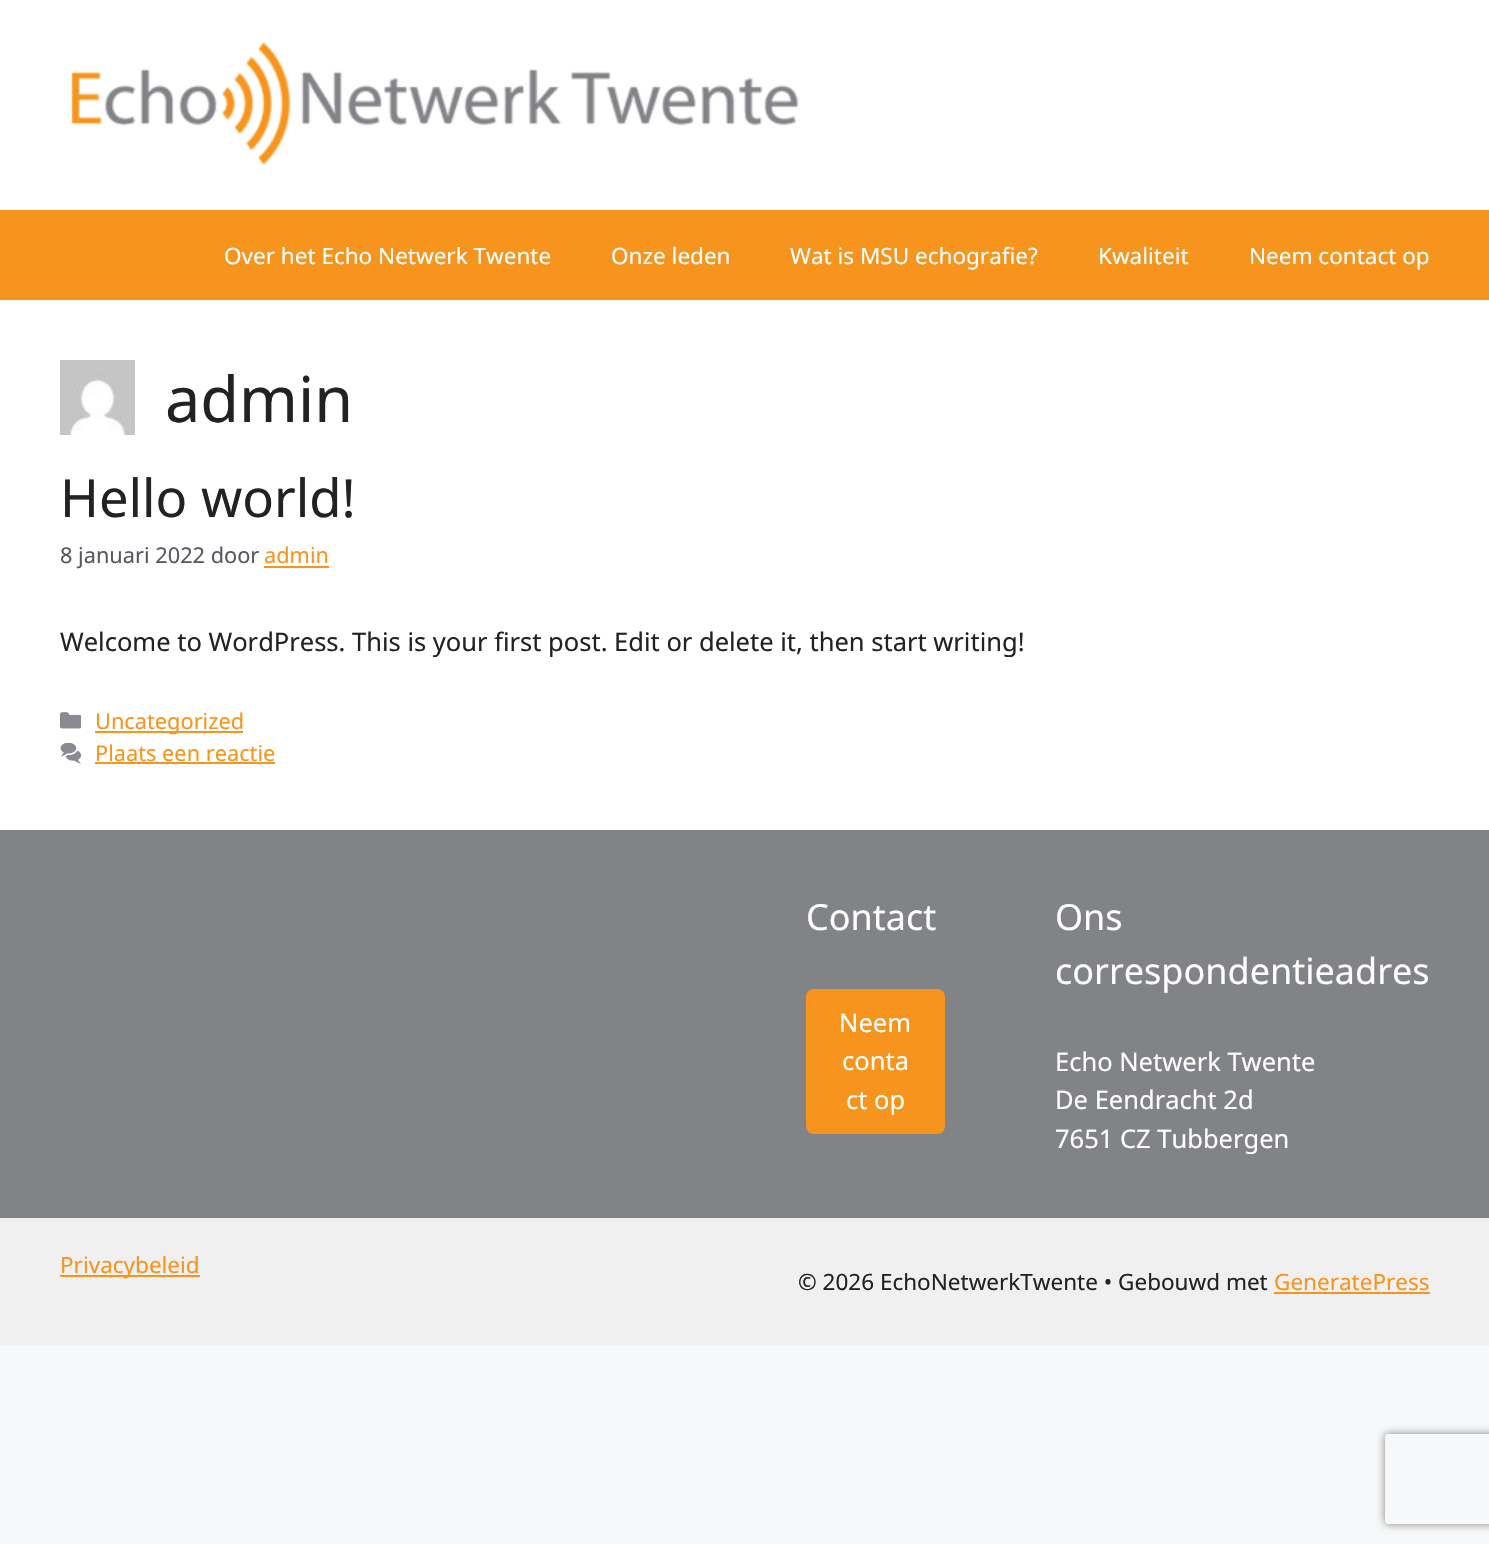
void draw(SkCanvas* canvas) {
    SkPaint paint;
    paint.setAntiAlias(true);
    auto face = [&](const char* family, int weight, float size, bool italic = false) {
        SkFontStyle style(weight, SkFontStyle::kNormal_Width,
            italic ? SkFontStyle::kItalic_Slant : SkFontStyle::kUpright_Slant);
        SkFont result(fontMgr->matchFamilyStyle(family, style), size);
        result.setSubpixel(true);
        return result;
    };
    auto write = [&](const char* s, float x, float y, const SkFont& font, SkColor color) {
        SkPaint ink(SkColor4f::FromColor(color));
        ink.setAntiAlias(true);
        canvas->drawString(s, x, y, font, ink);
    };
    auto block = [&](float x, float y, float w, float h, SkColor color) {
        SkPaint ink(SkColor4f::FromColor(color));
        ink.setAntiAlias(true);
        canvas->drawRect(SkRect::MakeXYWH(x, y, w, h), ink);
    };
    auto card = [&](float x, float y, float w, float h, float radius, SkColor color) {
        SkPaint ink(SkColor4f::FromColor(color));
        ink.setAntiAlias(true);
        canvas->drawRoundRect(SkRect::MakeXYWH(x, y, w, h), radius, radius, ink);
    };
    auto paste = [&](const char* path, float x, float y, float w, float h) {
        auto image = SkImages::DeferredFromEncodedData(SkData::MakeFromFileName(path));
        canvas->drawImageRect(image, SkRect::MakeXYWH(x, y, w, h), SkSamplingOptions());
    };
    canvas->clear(SkColorSetRGB(247, 248, 249));
    block(0, 0, 1489, 210, SK_ColorWHITE);
    paste("pic1.png", 71, 41, 728, 125);
    block(0, 210, 1489, 90, SkColorSetRGB(247, 148, 29));
    auto kFont1 = face("Noto Sans", 400, 22.5f);
    write("Over het Echo Netwerk Twente", 224, 264, kFont1, SK_ColorWHITE);
    write("Onze leden", 611, 264, kFont1, SK_ColorWHITE);
    write("Wat is MSU echografie?", 790, 264, kFont1, SK_ColorWHITE);
    write("Kwaliteit", 1098, 264, kFont1, SK_ColorWHITE);
    write("Neem contact op", 1249, 264, kFont1, SK_ColorWHITE);
    block(0, 300, 1489, 530, SK_ColorWHITE);
    paste("pic2.png", 60, 360, 75, 75);
    auto kFont2 = face("Noto Sans", 400, 63);
    write("admin", 165, 422, kFont2, SkColorSetRGB(34, 34, 34));
    auto kFont3 = face("Noto Sans", 400, 52.5f);
    write("Hello world!", 60, 517, kFont3, SkColorSetRGB(34, 34, 34));
    auto kFont4 = face("Noto Sans", 400, 21.75f);
    write("8 januari 2022 door", 60, 563, kFont4, SkColorSetRGB(87, 87, 96));
    write("admin", 264, 563, kFont4, SkColorSetRGB(247, 148, 29));
    block(264, 566, 65, 2, SkColorSetRGB(247, 148, 29));
    auto kFont5 = face("Noto Sans", 400, 25.5f);
    write("Welcome to WordPress. This is your first post. Edit or delete it, then start writing!", 60, 651, kFont5, SkColorSetRGB(34, 34, 34));
    paste("pic3.png", 60, 712, 21, 17);
    block(95, 731, 148, 2, SkColorSetRGB(247, 148, 29));
    write("Uncategorized", 95, 729, kFont4, SkColorSetRGB(247, 148, 29));
    paste("pic4.png", 60, 743, 21, 21);
    write("Plaats een reactie", 95, 761, kFont4, SkColorSetRGB(247, 148, 29));
    block(95, 762, 180, 2, SkColorSetRGB(247, 148, 29));
    block(0, 830, 1489, 388, SkColorSetRGB(130, 131, 135));
    auto kFont6 = face("Noto Sans", 400, 36);
    write("Contact", 806, 930, kFont6, SK_ColorWHITE);
    card(806, 989, 139, 145, 8, SkColorSetRGB(247, 148, 29));
    write("Neem", 839, 1032, kFont5, SK_ColorWHITE);
    write("conta", 842, 1070, kFont5, SK_ColorWHITE);
    write("ct op", 846, 1109, kFont5, SK_ColorWHITE);
    write("Ons", 1055, 930, kFont6, SK_ColorWHITE);
    write("correspondentieadres", 1055, 984, kFont6, SK_ColorWHITE);
    write("Echo Netwerk Twente", 1055, 1071, kFont5, SK_ColorWHITE);
    write("De Eendracht 2d", 1055, 1109, kFont5, SK_ColorWHITE);
    write("7651 CZ Tubbergen", 1055, 1148, kFont5, SK_ColorWHITE);
    block(0, 1218, 1489, 128, SkColorSetRGB(240, 240, 240));
    block(60, 1275, 140, 2, SkColorSetRGB(247, 148, 29));
    write("Privacybeleid", 60, 1273, kFont1, SkColorSetRGB(247, 148, 29));
    write("© 2026 EchoNetwerkTwente • Gebouwd met", 798, 1290, kFont1, SkColorSetRGB(34, 34, 34));
    write("GeneratePress", 1274, 1290, kFont1, SkColorSetRGB(247, 148, 29));
    block(1274, 1292, 156, 2, SkColorSetRGB(247, 148, 29));
    canvas->save();
    canvas->clipPath(SkPathBuilder(SkPathFillType::kEvenOdd).moveTo(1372, 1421).lineTo(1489, 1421).lineTo(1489, 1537).lineTo(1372, 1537).close().moveTo(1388, 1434).lineTo(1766, 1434).cubicTo(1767.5f, 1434, 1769, 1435.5f, 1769, 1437).lineTo(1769, 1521).cubicTo(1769, 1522.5f, 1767.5f, 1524, 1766, 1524).lineTo(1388, 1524).cubicTo(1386.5f, 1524, 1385, 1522.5f, 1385, 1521).lineTo(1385, 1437).cubicTo(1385, 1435.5f, 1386.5f, 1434, 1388, 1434).close().detach(), true);
    paint.setColor(SkColorSetRGB(128, 128, 128));
    paint.setMaskFilter(SkMaskFilter::MakeBlur(kNormal_SkBlurStyle, 4));
    canvas->drawRoundRect(SkRect::MakeXYWH(1385, 1434, 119, 90), 3, 3, paint);
    paint.setMaskFilter(nullptr);
    canvas->restore();
}
